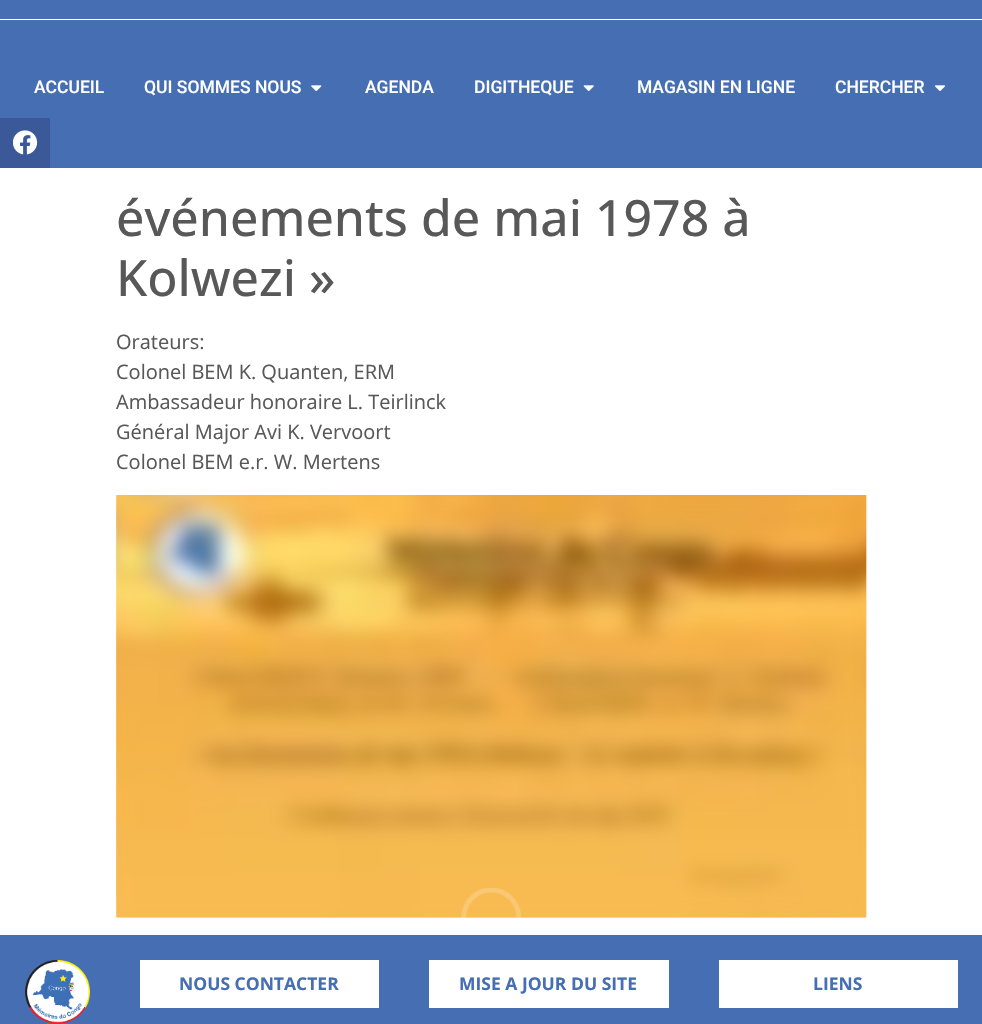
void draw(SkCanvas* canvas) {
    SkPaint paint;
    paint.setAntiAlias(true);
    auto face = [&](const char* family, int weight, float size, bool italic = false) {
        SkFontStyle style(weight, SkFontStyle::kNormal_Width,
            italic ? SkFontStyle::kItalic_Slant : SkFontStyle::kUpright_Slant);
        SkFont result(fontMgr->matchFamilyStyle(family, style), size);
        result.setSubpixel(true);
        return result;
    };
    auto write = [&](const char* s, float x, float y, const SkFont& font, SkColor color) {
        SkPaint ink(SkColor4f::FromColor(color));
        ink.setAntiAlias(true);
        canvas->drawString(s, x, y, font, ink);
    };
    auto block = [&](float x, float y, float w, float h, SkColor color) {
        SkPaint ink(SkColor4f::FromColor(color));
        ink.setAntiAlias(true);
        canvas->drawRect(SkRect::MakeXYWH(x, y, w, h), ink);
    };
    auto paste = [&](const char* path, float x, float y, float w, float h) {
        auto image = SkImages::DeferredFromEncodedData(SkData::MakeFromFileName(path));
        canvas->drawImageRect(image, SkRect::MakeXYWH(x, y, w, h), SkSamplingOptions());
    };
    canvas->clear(SK_ColorWHITE);
    block(0, 0, 982, 168, SkColorSetRGB(69, 111, 178));
    block(0, 19, 982, 1, SK_ColorWHITE);
    auto kFont1 = face("Roboto", 500, 17.5f);
    write("ACCUEIL", 34, 93, kFont1, SK_ColorWHITE);
    write("QUI SOMMES NOUS", 144, 93, kFont1, SK_ColorWHITE);
    paste("pic1.png", 311, 85, 11, 6);
    write("AGENDA", 365, 93, kFont1, SK_ColorWHITE);
    write("DIGITHEQUE", 474, 93, kFont1, SK_ColorWHITE);
    paste("pic2.png", 583, 85, 11, 6);
    write("MAGASIN EN LIGNE", 637, 93, kFont1, SK_ColorWHITE);
    write("CHERCHER", 835, 93, kFont1, SK_ColorWHITE);
    paste("pic3.png", 935, 85, 10, 6);
    block(0, 118, 50, 50, SkColorSetRGB(59, 89, 152));
    paste("pic4.png", 13, 130, 25, 25);
    auto kFont2 = face("Open Sans", 500, 50);
    write("événements de mai 1978 à", 116, 236, kFont2, SkColorSetRGB(88, 88, 88));
    write("Kolwezi »", 116, 296, kFont2, SkColorSetRGB(88, 88, 88));
    auto kFont3 = face("Open Sans", 400, 20);
    write("Orateurs:", 116, 349, kFont3, SkColorSetRGB(88, 88, 88));
    write("Colonel BEM K. Quanten, ERM", 116, 379, kFont3, SkColorSetRGB(88, 88, 88));
    write("Ambassadeur honoraire L. Teirlinck", 116, 409, kFont3, SkColorSetRGB(88, 88, 88));
    write("Général Major Avi K. Vervoort", 116, 439, kFont3, SkColorSetRGB(88, 88, 88));
    write("Colonel BEM e.r. W. Mertens", 116, 469, kFont3, SkColorSetRGB(88, 88, 88));
    paste("pic5.png", 116, 495, 751, 423);
    block(0, 935, 982, 89, SkColorSetRGB(69, 111, 178));
    paste("pic6.png", 25, 960, 65, 64);
    block(140, 960, 239, 48, SK_ColorWHITE);
    auto kFont4 = face("Open Sans", 700, 17.5f);
    write("NOUS CONTACTER", 179, 990, kFont4, SkColorSetRGB(69, 111, 178));
    block(429, 960, 240, 48, SK_ColorWHITE);
    write("MISE A JOUR DU SITE", 459, 990, kFont4, SkColorSetRGB(69, 111, 178));
    block(719, 960, 239, 48, SK_ColorWHITE);
    write("LIENS", 813, 990, kFont4, SkColorSetRGB(69, 111, 178));
}
